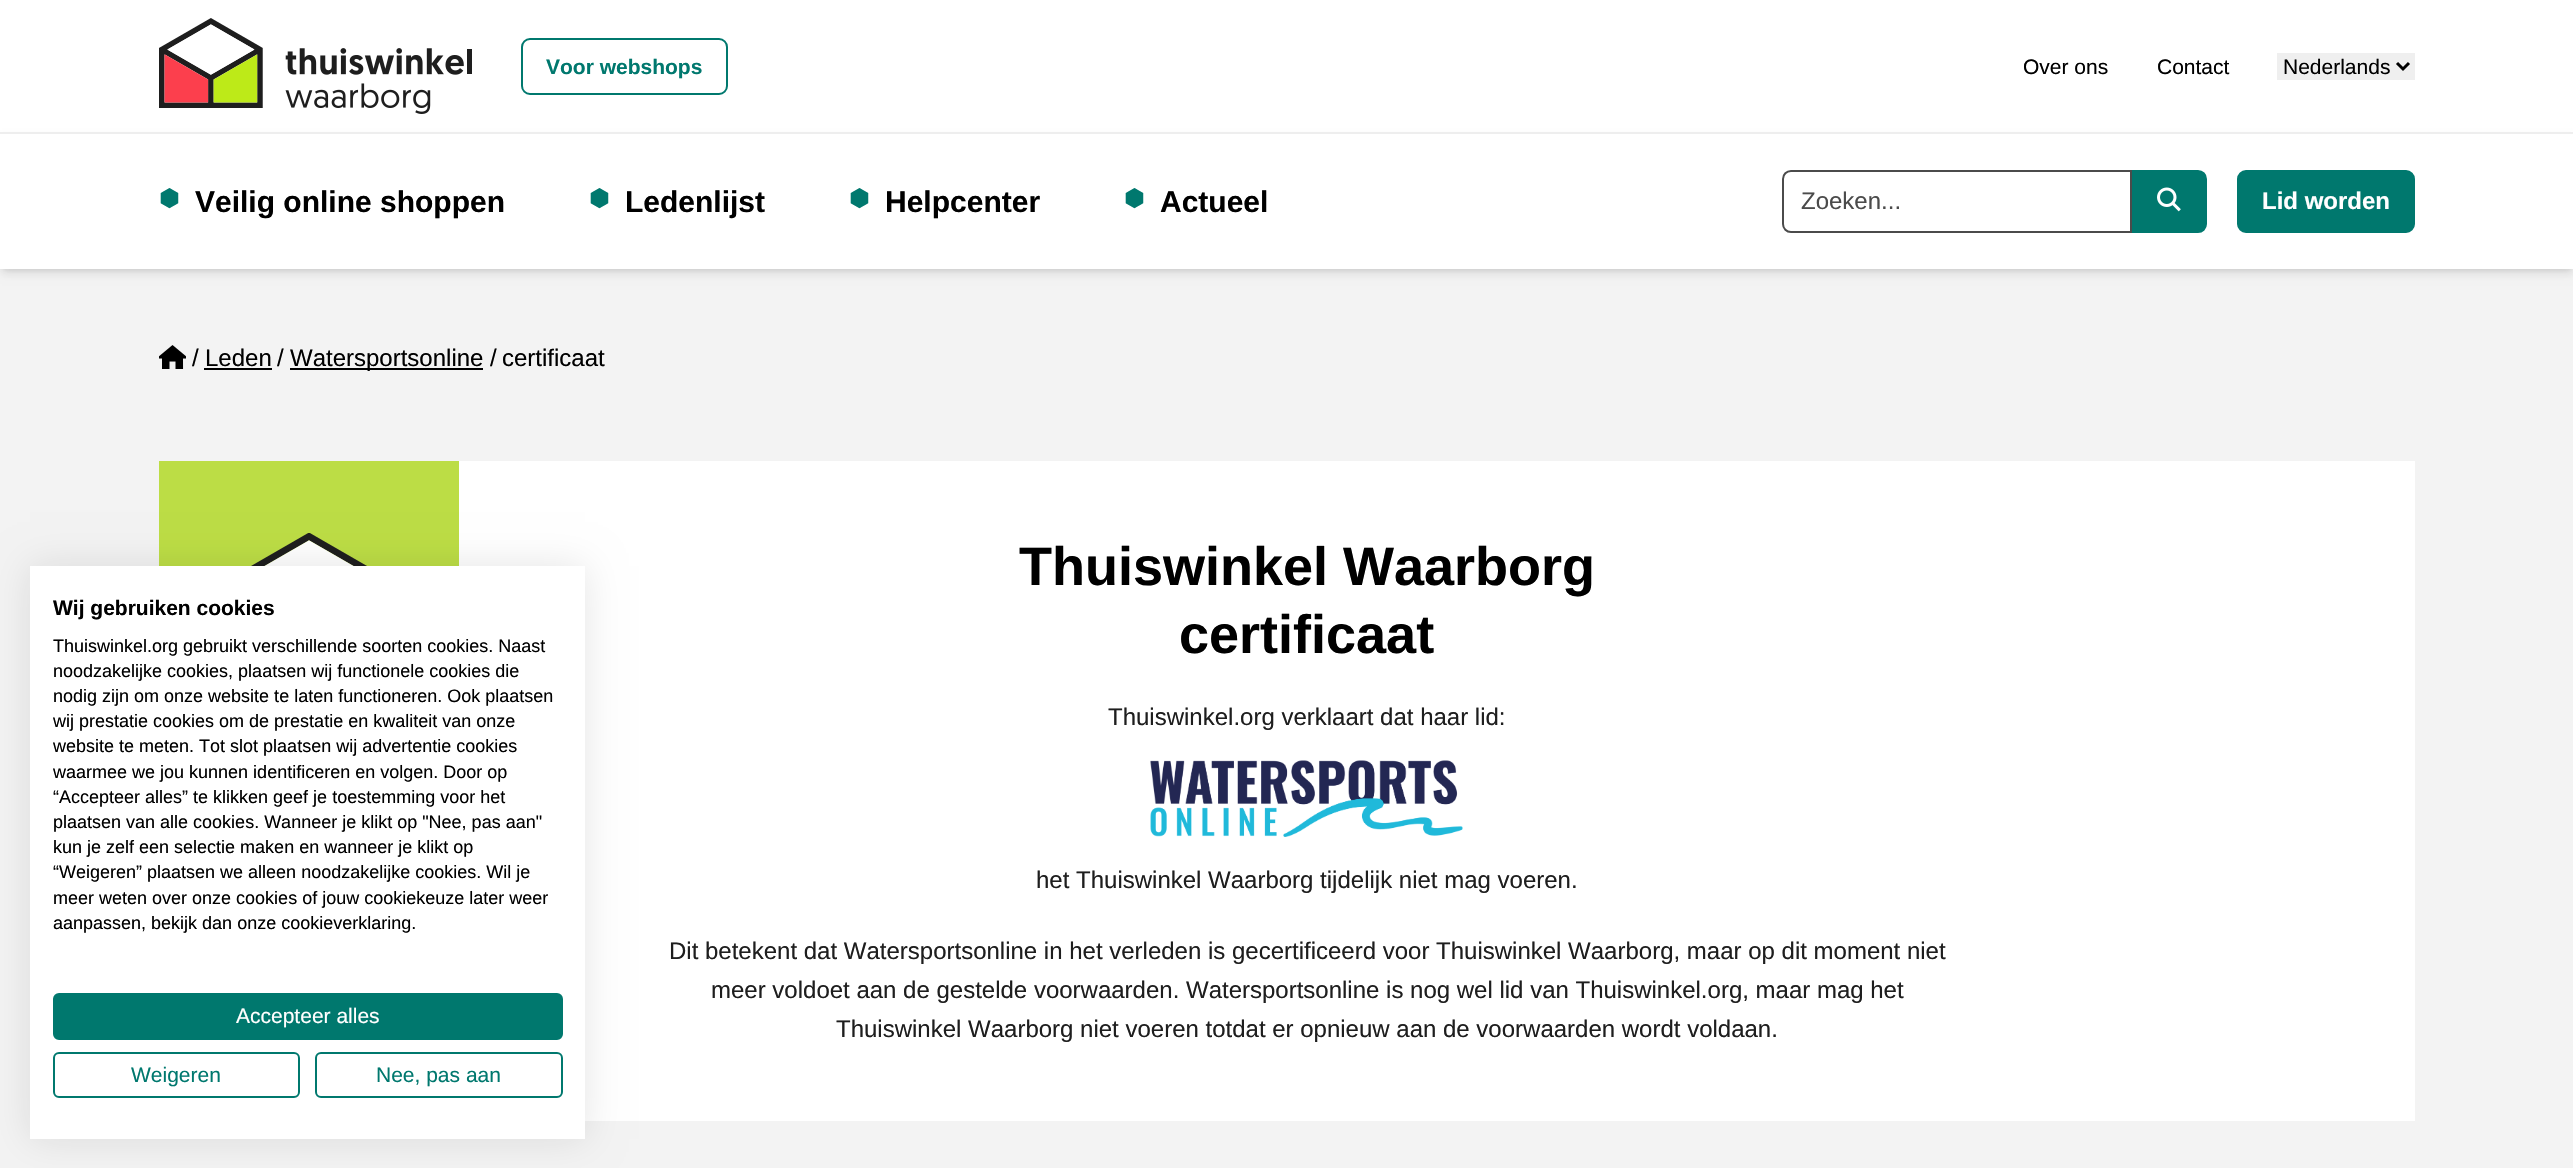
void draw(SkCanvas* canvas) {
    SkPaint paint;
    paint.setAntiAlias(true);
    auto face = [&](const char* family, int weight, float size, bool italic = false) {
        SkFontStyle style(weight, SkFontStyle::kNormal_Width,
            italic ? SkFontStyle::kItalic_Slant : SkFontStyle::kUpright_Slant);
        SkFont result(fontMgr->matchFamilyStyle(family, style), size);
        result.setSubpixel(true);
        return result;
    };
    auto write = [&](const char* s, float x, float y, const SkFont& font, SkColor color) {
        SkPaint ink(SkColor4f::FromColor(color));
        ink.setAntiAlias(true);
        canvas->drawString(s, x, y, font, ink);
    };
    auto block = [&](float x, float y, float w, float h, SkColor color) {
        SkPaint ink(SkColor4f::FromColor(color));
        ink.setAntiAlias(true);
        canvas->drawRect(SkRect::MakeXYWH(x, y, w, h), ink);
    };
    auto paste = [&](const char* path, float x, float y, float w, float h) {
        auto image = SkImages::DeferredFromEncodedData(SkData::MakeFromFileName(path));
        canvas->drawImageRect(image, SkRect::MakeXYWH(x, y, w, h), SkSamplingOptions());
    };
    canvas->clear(SK_ColorWHITE);
    block(0, 269, 2573, 899, SkColorSetRGB(243, 243, 243));
    paint.setColor(SkColorSetARGB(26, 0, 0, 0));
    paint.setMaskFilter(SkMaskFilter::MakeBlur(kNormal_SkBlurStyle, 3));
    canvas->drawRect(SkRect::MakeXYWH(3, 140, 2568, 129), paint);
    paint.setMaskFilter(nullptr);
    paint.setMaskFilter(SkMaskFilter::MakeBlur(kNormal_SkBlurStyle, 4.5f));
    canvas->drawRect(SkRect::MakeXYWH(2, 141, 2571, 132), paint);
    paint.setMaskFilter(nullptr);
    block(0, 132, 2573, 2, SkColorSetRGB(238, 238, 238));
    paste("pic1.png", 159, 18, 313, 96);
    paint.setStyle(SkPaint::kStroke_Style);
    paint.setStrokeWidth(2);
    paint.setColor(SkColorSetRGB(0, 120, 110));
    canvas->drawRoundRect(SkRect::MakeXYWH(522, 39, 205, 55), 8, 8, paint);
    auto kFont1 = face("Liberation Sans", 700, 21);
    write("Voor webshops", 546, 74, kFont1, SkColorSetRGB(0, 120, 110));
    auto kFont2 = face("Liberation Sans", 400, 21);
    write("Over ons", 2023, 74, kFont2, SK_ColorBLACK);
    write("Contact", 2157, 74, kFont2, SK_ColorBLACK);
    block(2277, 53, 138, 27, SkColorSetRGB(239, 239, 239));
    paint.setStrokeWidth(3);
    paint.setColor(SK_ColorBLACK);
    canvas->drawPath(SkPathBuilder().moveTo(2397, 63).lineTo(2403, 69).lineTo(2409, 63).detach(), paint);
    write("Nederlands", 2283, 74, kFont2, SK_ColorBLACK);
    block(0, 134, 2573, 135, SK_ColorWHITE);
    auto kFont3 = face("DejaVu Sans", 400, 24);
    write("⬢", 159, 206, kFont3, SkColorSetRGB(0, 120, 110));
    auto kFont4 = face("Liberation Sans", 700, 30);
    write("Veilig online shoppen", 195, 212, kFont4, SK_ColorBLACK);
    write("⬢", 589, 206, kFont3, SkColorSetRGB(0, 120, 110));
    write("Ledenlijst", 625, 212, kFont4, SK_ColorBLACK);
    write("⬢", 849, 206, kFont3, SkColorSetRGB(0, 120, 110));
    write("Helpcenter", 885, 212, kFont4, SK_ColorBLACK);
    write("⬢", 1124, 206, kFont3, SkColorSetRGB(0, 120, 110));
    write("Actueel", 1160, 212, kFont4, SK_ColorBLACK);
    paint.setStrokeWidth(2);
    paint.setColor(SkColorSetRGB(75, 75, 75));
    canvas->drawPath(SkPathBuilder().moveTo(1791, 171).lineTo(2131, 171).lineTo(2131, 232).lineTo(1791, 232).cubicTo(1786.5f, 232, 1783, 228.5f, 1783, 224).lineTo(1783, 179).cubicTo(1783, 174.5f, 1786.5f, 171, 1791, 171).close().detach(), paint);
    auto kFont5 = face("Liberation Sans", 400, 24);
    write("Zoeken...", 1801, 209, kFont5, SkColorSetRGB(75, 75, 75));
    paint.setStyle(SkPaint::kFill_Style);
    paint.setColor(SkColorSetRGB(0, 120, 110));
    canvas->drawPath(SkPathBuilder().moveTo(2133, 171).lineTo(2198, 171).cubicTo(2202.5f, 171, 2206, 174.5f, 2206, 179).lineTo(2206, 224).cubicTo(2206, 228.5f, 2202.5f, 232, 2198, 232).lineTo(2133, 232).close().detach(), paint);
    paint.setStyle(SkPaint::kStroke_Style);
    canvas->drawPath(SkPathBuilder().moveTo(2133, 171).lineTo(2198, 171).cubicTo(2202.5f, 171, 2206, 174.5f, 2206, 179).lineTo(2206, 224).cubicTo(2206, 228.5f, 2202.5f, 232, 2198, 232).lineTo(2133, 232).close().detach(), paint);
    paste("pic2.png", 2157, 187, 24, 25);
    paint.setStyle(SkPaint::kFill_Style);
    canvas->drawRoundRect(SkRect::MakeXYWH(2238, 171, 176, 61), 8, 8, paint);
    paint.setStyle(SkPaint::kStroke_Style);
    canvas->drawRoundRect(SkRect::MakeXYWH(2238, 171, 176, 61), 8, 8, paint);
    auto kFont6 = face("Liberation Sans", 700, 24);
    write("Lid worden", 2262, 209, kFont6, SK_ColorWHITE);
    paste("pic3.png", 159, 345, 27, 24);
    write("/", 192, 366, kFont5, SK_ColorBLACK);
    write("Leden", 205, 366, kFont5, SK_ColorBLACK);
    block(204, 368, 68, 2, SK_ColorBLACK);
    write("/", 277, 366, kFont5, SK_ColorBLACK);
    block(290, 368, 193, 2, SK_ColorBLACK);
    write("Watersportsonline", 290, 366, kFont5, SK_ColorBLACK);
    write("/", 490, 366, kFont5, SK_ColorBLACK);
    write("certificaat", 502, 366, kFont5, SK_ColorBLACK);
    block(459, 461, 1956, 660, SK_ColorWHITE);
    block(159, 461, 300, 105, SkColorSetRGB(188, 221, 69));
    paste("pic4.png", 251, 533, 116, 33);
    auto kFont7 = face("Liberation Sans", 700, 54);
    write("Thuiswinkel Waarborg", 1019, 585, kFont7, SK_ColorBLACK);
    write("certificaat", 1179, 653, kFont7, SK_ColorBLACK);
    write("Thuiswinkel.org verklaart dat haar lid:", 1108, 725, kFont5, SkColorSetRGB(30, 30, 30));
    paste("pic5.png", 1150, 760, 313, 77);
    write("het Thuiswinkel Waarborg tijdelijk niet mag voeren.", 1036, 888, kFont5, SkColorSetRGB(30, 30, 30));
    write("Dit betekent dat Watersportsonline in het verleden is gecertificeerd voor Thuiswinkel Waarborg, maar op dit moment niet", 669, 959, kFont5, SkColorSetRGB(30, 30, 30));
    write("meer voldoet aan de gestelde voorwaarden. Watersportsonline is nog wel lid van Thuiswinkel.org, maar mag het", 711, 998, kFont5, SkColorSetRGB(30, 30, 30));
    write("Thuiswinkel Waarborg niet voeren totdat er opnieuw aan de voorwaarden wordt voldaan.", 836, 1037, kFont5, SkColorSetRGB(30, 30, 30));
    paint.setStyle(SkPaint::kFill_Style);
    paint.setColor(SkColorSetARGB(26, 0, 0, 0));
    paint.setMaskFilter(SkMaskFilter::MakeBlur(kNormal_SkBlurStyle, 18));
    canvas->drawRect(SkRect::MakeXYWH(30, 566, 555, 573), paint);
    paint.setMaskFilter(nullptr);
    block(30, 566, 555, 573, SK_ColorWHITE);
    write("Wij gebruiken cookies", 53, 615, kFont1, SK_ColorBLACK);
    auto kFont8 = face("Liberation Sans", 400, 18);
    write("Thuiswinkel.org gebruikt verschillende soorten cookies. Naast", 53, 652, kFont8, SK_ColorBLACK);
    write("noodzakelijke cookies, plaatsen wij functionele cookies die", 53, 677, kFont8, SK_ColorBLACK);
    write("nodig zijn om onze website te laten functioneren. Ook plaatsen", 53, 702, kFont8, SK_ColorBLACK);
    write("wij prestatie cookies om de prestatie en kwaliteit van onze", 53, 727, kFont8, SK_ColorBLACK);
    write("website te meten. Tot slot plaatsen wij advertentie cookies", 53, 752, kFont8, SK_ColorBLACK);
    write("waarmee we jou kunnen identificeren en volgen. Door op", 53, 778, kFont8, SK_ColorBLACK);
    write("“Accepteer alles” te klikken geef je toestemming voor het", 53, 803, kFont8, SK_ColorBLACK);
    write("plaatsen van alle cookies. Wanneer je klikt op \"Nee, pas aan\"", 53, 828, kFont8, SK_ColorBLACK);
    write("kun je zelf een selectie maken en wanneer je klikt op", 53, 853, kFont8, SK_ColorBLACK);
    write("“Weigeren” plaatsen we alleen noodzakelijke cookies. Wil je", 53, 878, kFont8, SK_ColorBLACK);
    write("meer weten over onze cookies of jouw cookiekeuze later weer", 53, 904, kFont8, SK_ColorBLACK);
    write("aanpassen, bekijk dan onze cookieverklaring.", 53, 929, kFont8, SK_ColorBLACK);
    paint.setColor(SkColorSetRGB(0, 120, 110));
    canvas->drawRoundRect(SkRect::MakeXYWH(54, 994, 508, 45), 5, 5, paint);
    paint.setStyle(SkPaint::kStroke_Style);
    canvas->drawRoundRect(SkRect::MakeXYWH(54, 994, 508, 45), 5, 5, paint);
    write("Accepteer alles", 236, 1023, kFont2, SK_ColorWHITE);
    canvas->drawRoundRect(SkRect::MakeXYWH(54, 1053, 245, 44), 5, 5, paint);
    write("Weigeren", 131, 1082, kFont2, SkColorSetRGB(0, 120, 110));
    canvas->drawRoundRect(SkRect::MakeXYWH(316, 1053, 246, 44), 5, 5, paint);
    write("Nee, pas aan", 376, 1082, kFont2, SkColorSetRGB(0, 120, 110));
}
